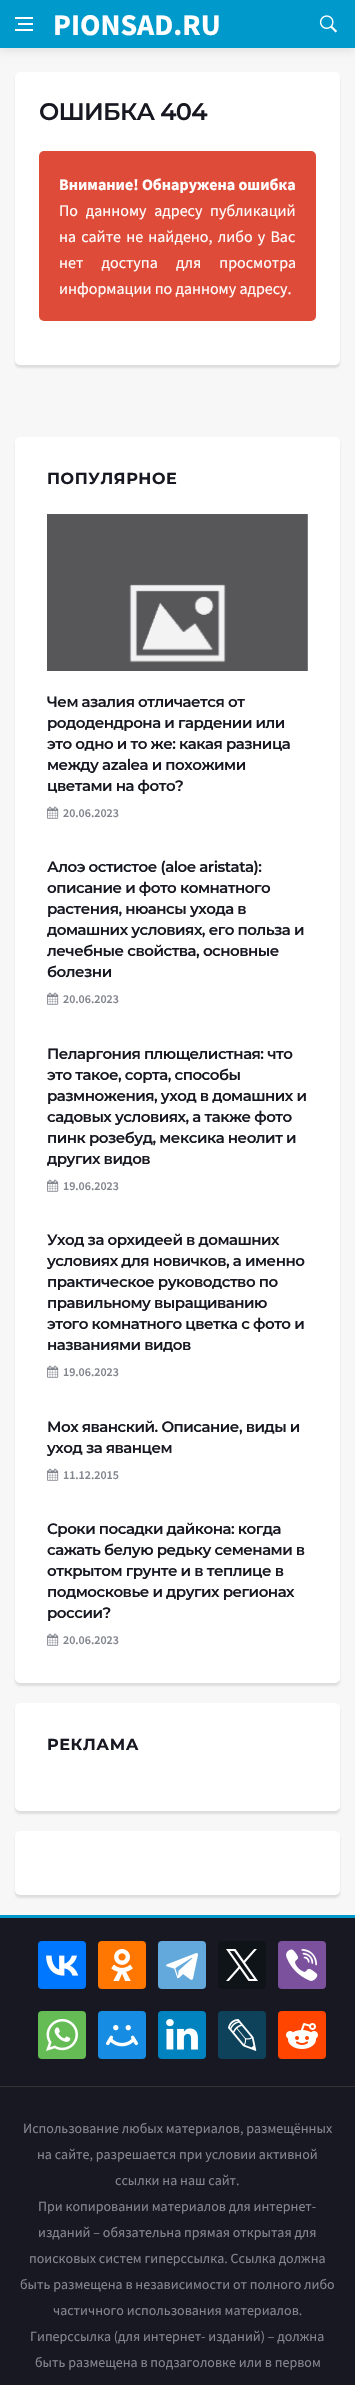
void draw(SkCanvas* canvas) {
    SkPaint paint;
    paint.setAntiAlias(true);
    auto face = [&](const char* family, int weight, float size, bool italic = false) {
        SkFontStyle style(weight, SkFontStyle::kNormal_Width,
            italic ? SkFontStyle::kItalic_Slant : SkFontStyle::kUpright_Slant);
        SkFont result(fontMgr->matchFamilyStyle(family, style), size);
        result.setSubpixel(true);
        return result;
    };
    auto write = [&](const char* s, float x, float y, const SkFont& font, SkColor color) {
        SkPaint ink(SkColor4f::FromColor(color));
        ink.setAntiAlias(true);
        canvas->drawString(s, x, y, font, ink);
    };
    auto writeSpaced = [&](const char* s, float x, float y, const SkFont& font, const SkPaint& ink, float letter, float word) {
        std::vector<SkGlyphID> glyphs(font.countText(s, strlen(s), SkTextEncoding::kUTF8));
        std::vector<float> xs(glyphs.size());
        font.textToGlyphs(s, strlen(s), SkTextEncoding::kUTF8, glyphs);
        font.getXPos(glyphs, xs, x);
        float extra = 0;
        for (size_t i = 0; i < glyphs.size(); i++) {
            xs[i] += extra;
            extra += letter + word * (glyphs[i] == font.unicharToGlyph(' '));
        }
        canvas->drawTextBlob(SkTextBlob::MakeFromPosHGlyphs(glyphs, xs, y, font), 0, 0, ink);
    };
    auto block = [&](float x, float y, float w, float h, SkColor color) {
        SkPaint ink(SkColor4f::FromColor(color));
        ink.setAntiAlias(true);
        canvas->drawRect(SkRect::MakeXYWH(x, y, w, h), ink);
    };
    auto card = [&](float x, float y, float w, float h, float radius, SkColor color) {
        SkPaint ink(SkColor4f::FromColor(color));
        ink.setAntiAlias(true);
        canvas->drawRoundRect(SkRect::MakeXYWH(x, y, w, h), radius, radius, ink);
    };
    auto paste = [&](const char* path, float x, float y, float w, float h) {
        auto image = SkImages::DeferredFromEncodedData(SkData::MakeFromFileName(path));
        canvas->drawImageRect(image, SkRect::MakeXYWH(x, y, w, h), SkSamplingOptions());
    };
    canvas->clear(SkColorSetRGB(247, 247, 247));
    paint.setColor(SkColorSetARGB(26, 0, 0, 0));
    paint.setMaskFilter(SkMaskFilter::MakeBlur(kNormal_SkBlurStyle, 5));
    canvas->drawRect(SkRect::MakeXYWH(0, 2, 355, 48), paint);
    paint.setMaskFilter(nullptr);
    block(0, 0, 355, 48, SkColorSetRGB(0, 153, 204));
    block(18, 23, 15, 2, SK_ColorWHITE);
    block(15, 17, 18, 2, SK_ColorWHITE);
    block(15, 29, 18, 2, SK_ColorWHITE);
    auto kFont1 = face("Source Sans Pro", 700, 30);
    write("PIONSAD.RU", 53, 35, kFont1, SK_ColorWHITE);
    paste("pic1.png", 319, 15, 18, 18);
    paint.setMaskFilter(SkMaskFilter::MakeBlur(kNormal_SkBlurStyle, 1));
    canvas->drawRoundRect(SkRect::MakeXYWH(15, 75, 325, 293), 5, 5, paint);
    paint.setMaskFilter(nullptr);
    card(15, 72, 325, 293, 5, SK_ColorWHITE);
    auto kFont2 = face("Montserrat", 600, 24);
    paint.setColor(SkColorSetRGB(23, 24, 33));
    writeSpaced("ОШИБКА 404", 39, 120, kFont2, paint, -0.75f, 0);
    card(39, 151, 277, 170, 5, SkColorSetRGB(222, 75, 57));
    auto kFont3 = face("Source Sans Pro", 700, 16);
    write("Внимание! Обнаружена ошибка", 59, 190, kFont3, SK_ColorWHITE);
    auto kFont4 = face("Source Sans Pro", 400, 16);
    paint.setColor(SK_ColorWHITE);
    writeSpaced("По данному адресу публикаций", 59, 216, kFont4, paint, 0, 4.5f);
    writeSpaced("на сайте не найдено, либо у Вас", 59, 242, kFont4, paint, 0, 2);
    writeSpaced("нет доступа для просмотра", 59, 268, kFont4, paint, 0, 15);
    write("информации по данному адресу.", 59, 294, kFont4, SK_ColorWHITE);
    paint.setColor(SkColorSetARGB(26, 0, 0, 0));
    paint.setMaskFilter(SkMaskFilter::MakeBlur(kNormal_SkBlurStyle, 1));
    canvas->drawRoundRect(SkRect::MakeXYWH(15, 440, 325, 1246), 5, 5, paint);
    paint.setMaskFilter(nullptr);
    card(15, 437, 325, 1246, 5, SK_ColorWHITE);
    auto kFont5 = face("Montserrat", 700, 16);
    paint.setColor(SkColorSetRGB(23, 24, 33));
    writeSpaced("ПОПУЛЯРНОЕ", 47, 484, kFont5, paint, 0.6f, 0);
    paste("pic2.png", 47, 514, 261, 157);
    auto kFont6 = face("Montserrat", 600, 15);
    writeSpaced("Чем азалия отличается от", 47, 707, kFont6, paint, -0.5f, 0);
    writeSpaced("рододендрона и гардении или", 47, 728, kFont6, paint, -0.5f, 0);
    writeSpaced("это одно и то же: какая разница", 47, 749, kFont6, paint, -0.5f, 0);
    writeSpaced("между azalea и похожими", 47, 770, kFont6, paint, -0.5f, 0);
    writeSpaced("цветами на фото?", 47, 791, kFont6, paint, -0.5f, 0);
    paste("pic3.png", 47, 806, 12, 13);
    auto kFont7 = face("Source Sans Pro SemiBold", 600, 12);
    write("20.06.2023", 63, 817, kFont7, SkColorSetRGB(131, 133, 143));
    writeSpaced("Алоэ остистое (aloe aristata):", 47, 872, kFont6, paint, -0.5f, 0);
    writeSpaced("описание и фото комнатного", 47, 893, kFont6, paint, -0.5f, 0);
    writeSpaced("растения, нюансы ухода в", 47, 914, kFont6, paint, -0.5f, 0);
    writeSpaced("домашних условиях, его польза и", 47, 935, kFont6, paint, -0.5f, 0);
    writeSpaced("лечебные свойства, основные", 47, 956, kFont6, paint, -0.5f, 0);
    writeSpaced("болезни", 47, 977, kFont6, paint, -0.5f, 0);
    paste("pic3.png", 47, 992, 12, 13);
    write("20.06.2023", 63, 1003, kFont7, SkColorSetRGB(131, 133, 143));
    writeSpaced("Пеларгония плющелистная: что", 47, 1059, kFont6, paint, -0.5f, 0);
    writeSpaced("это такое, сорта, способы", 47, 1080, kFont6, paint, -0.5f, 0);
    writeSpaced("размножения, уход в домашних и", 47, 1101, kFont6, paint, -0.5f, 0);
    writeSpaced("садовых условиях, а также фото", 47, 1122, kFont6, paint, -0.5f, 0);
    writeSpaced("пинк розебуд, мексика неолит и", 47, 1143, kFont6, paint, -0.5f, 0);
    writeSpaced("других видов", 47, 1164, kFont6, paint, -0.5f, 0);
    paste("pic3.png", 47, 1179, 12, 13);
    write("19.06.2023", 63, 1190, kFont7, SkColorSetRGB(131, 133, 143));
    writeSpaced("Уход за орхидеей в домашних", 47, 1245, kFont6, paint, -0.5f, 0);
    writeSpaced("условиях для новичков, а именно", 47, 1266, kFont6, paint, -0.5f, 0);
    writeSpaced("практическое руководство по", 47, 1287, kFont6, paint, -0.5f, 0);
    writeSpaced("правильному выращиванию", 47, 1308, kFont6, paint, -0.5f, 0);
    writeSpaced("этого комнатного цветка с фото и", 47, 1329, kFont6, paint, -0.5f, 0);
    writeSpaced("названиями видов", 47, 1350, kFont6, paint, -0.5f, 0);
    paste("pic3.png", 47, 1365, 12, 13);
    write("19.06.2023", 63, 1376, kFont7, SkColorSetRGB(131, 133, 143));
    writeSpaced("Мох яванский. Описание, виды и", 47, 1432, kFont6, paint, -0.5f, 0);
    writeSpaced("уход за яванцем", 47, 1453, kFont6, paint, -0.5f, 0);
    paste("pic3.png", 47, 1468, 12, 13);
    write("11.12.2015", 63, 1479, kFont7, SkColorSetRGB(131, 133, 143));
    writeSpaced("Сроки посадки дайкона: когда", 47, 1534, kFont6, paint, -0.5f, 0);
    writeSpaced("сажать белую редьку семенами в", 47, 1555, kFont6, paint, -0.5f, 0);
    writeSpaced("открытом грунте и в теплице в", 47, 1576, kFont6, paint, -0.5f, 0);
    writeSpaced("подмосковье и других регионах", 47, 1597, kFont6, paint, -0.5f, 0);
    writeSpaced("россии?", 47, 1618, kFont6, paint, -0.5f, 0);
    paste("pic3.png", 47, 1633, 12, 13);
    write("20.06.2023", 63, 1644, kFont7, SkColorSetRGB(131, 133, 143));
    paint.setColor(SkColorSetARGB(26, 0, 0, 0));
    paint.setMaskFilter(SkMaskFilter::MakeBlur(kNormal_SkBlurStyle, 1));
    canvas->drawRoundRect(SkRect::MakeXYWH(15, 1706, 325, 108), 5, 5, paint);
    paint.setMaskFilter(nullptr);
    card(15, 1703, 325, 108, 5, SK_ColorWHITE);
    paint.setColor(SkColorSetRGB(23, 24, 33));
    writeSpaced("РЕКЛАМА", 47, 1750, kFont5, paint, 0.6f, 0);
    paint.setColor(SkColorSetARGB(26, 0, 0, 0));
    paint.setMaskFilter(SkMaskFilter::MakeBlur(kNormal_SkBlurStyle, 1));
    canvas->drawRoundRect(SkRect::MakeXYWH(15, 1834, 325, 64), 5, 5, paint);
    paint.setMaskFilter(nullptr);
    card(15, 1831, 325, 64, 5, SK_ColorWHITE);
    block(0, 1918, 355, 467, SkColorSetRGB(23, 24, 33));
    block(0, 1915, 355, 3, SkColorSetRGB(0, 153, 204));
    block(0, 2086, 355, 1, SkColorSetRGB(51, 51, 51));
    card(38, 1941, 48, 48, 4, SkColorSetRGB(0, 119, 255));
    paste("pic4.png", 46, 1955, 33, 21);
    card(98, 1941, 48, 48, 4, SkColorSetRGB(255, 119, 0));
    paste("pic5.png", 111, 1949, 22, 32);
    card(158, 1941, 48, 48, 4, SkColorSetRGB(100, 169, 220));
    paste("pic6.png", 166, 1953, 32, 27);
    card(218, 1941, 48, 48, 4, SkColorSetRGB(15, 20, 25));
    paste("pic7.png", 226, 1949, 32, 32);
    card(278, 1941, 48, 48, 4, SkColorSetRGB(123, 81, 157));
    paste("pic8.png", 286, 1949, 32, 32);
    card(38, 2011, 48, 48, 4, SkColorSetRGB(101, 188, 84));
    paste("pic9.png", 46, 2019, 32, 32);
    card(98, 2011, 48, 48, 4, SkColorSetRGB(22, 141, 226));
    paste("pic10.png", 106, 2025, 32, 22);
    card(158, 2011, 48, 48, 4, SkColorSetRGB(0, 131, 190));
    paste("pic11.png", 166, 2019, 32, 31);
    card(218, 2011, 48, 48, 4, SkColorSetRGB(13, 66, 90));
    paste("pic12.png", 228, 2019, 29, 32);
    card(278, 2011, 48, 48, 4, SkColorSetRGB(255, 69, 0));
    paste("pic13.png", 286, 2023, 32, 26);
    auto kFont8 = face("Source Sans Pro", 400, 14);
    write("Использование любых материалов, размещённых", 23, 2133, kFont8, SkColorSetRGB(131, 133, 143));
    write("на сайте, разрешается при условии активной", 37, 2159, kFont8, SkColorSetRGB(131, 133, 143));
    write("ссылки на наш сайт.", 115, 2185, kFont8, SkColorSetRGB(131, 133, 143));
    write("При копировании материалов для интернет-", 38, 2211, kFont8, SkColorSetRGB(131, 133, 143));
    write("изданий – обязательна прямая открытая для", 38, 2237, kFont8, SkColorSetRGB(131, 133, 143));
    write("поисковых систем гиперссылка. Ссылка должна", 29, 2263, kFont8, SkColorSetRGB(131, 133, 143));
    write("быть размещена в независимости от полного либо", 20, 2289, kFont8, SkColorSetRGB(131, 133, 143));
    write("частичного использования материалов.", 53, 2315, kFont8, SkColorSetRGB(131, 133, 143));
    write("Гиперссылка (для интернет- изданий) – должна", 30, 2341, kFont8, SkColorSetRGB(131, 133, 143));
    write("быть размещена в подзаголовке или в первом", 35, 2367, kFont8, SkColorSetRGB(131, 133, 143));
}
